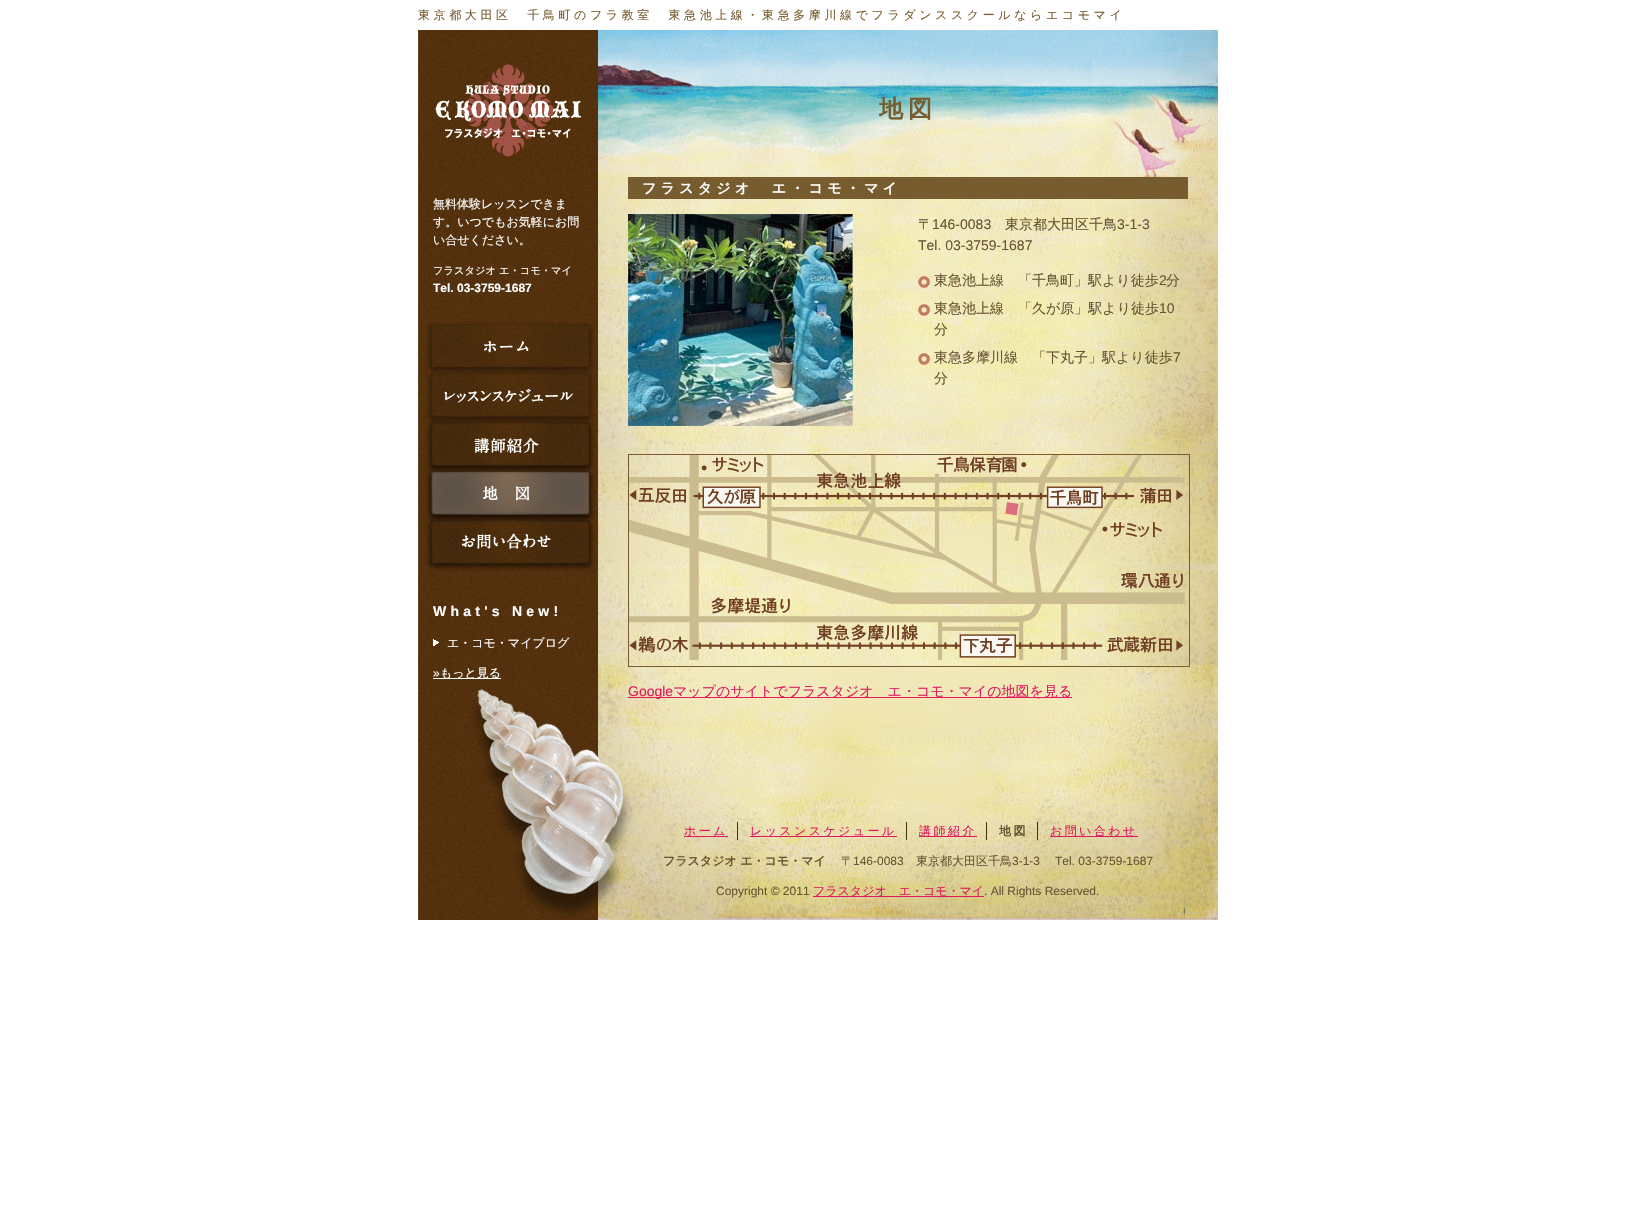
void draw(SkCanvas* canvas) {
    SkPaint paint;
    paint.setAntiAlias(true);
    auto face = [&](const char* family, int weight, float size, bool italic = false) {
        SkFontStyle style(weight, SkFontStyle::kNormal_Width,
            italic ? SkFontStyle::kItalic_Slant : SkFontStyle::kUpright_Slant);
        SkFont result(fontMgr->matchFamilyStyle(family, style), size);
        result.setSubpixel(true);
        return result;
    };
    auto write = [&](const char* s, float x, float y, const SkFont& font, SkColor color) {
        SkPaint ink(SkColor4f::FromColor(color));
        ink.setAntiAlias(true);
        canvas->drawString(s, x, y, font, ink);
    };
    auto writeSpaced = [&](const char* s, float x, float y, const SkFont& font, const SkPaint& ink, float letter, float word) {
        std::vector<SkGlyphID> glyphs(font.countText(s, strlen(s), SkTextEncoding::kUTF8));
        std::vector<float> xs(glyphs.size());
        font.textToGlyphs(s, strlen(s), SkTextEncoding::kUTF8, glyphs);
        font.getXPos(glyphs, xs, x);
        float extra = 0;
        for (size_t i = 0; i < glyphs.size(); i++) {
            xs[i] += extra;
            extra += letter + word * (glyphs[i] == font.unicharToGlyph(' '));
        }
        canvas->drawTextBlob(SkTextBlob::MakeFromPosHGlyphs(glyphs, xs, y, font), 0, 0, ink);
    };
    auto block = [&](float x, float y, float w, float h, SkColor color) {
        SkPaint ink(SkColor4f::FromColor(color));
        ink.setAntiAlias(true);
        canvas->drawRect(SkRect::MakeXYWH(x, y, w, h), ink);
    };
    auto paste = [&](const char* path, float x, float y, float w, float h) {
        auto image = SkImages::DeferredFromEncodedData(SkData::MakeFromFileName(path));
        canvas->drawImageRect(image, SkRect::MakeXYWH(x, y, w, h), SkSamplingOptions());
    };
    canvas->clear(SK_ColorWHITE);
    paste("pic1.png", 418, 30, 800, 635);
    paste("pic2.png", 418, 665, 800, 255);
    auto kFont1 = face("WenQuanYi Zen Hei", 500, 12);
    paint.setColor(SkColorSetRGB(119, 92, 47));
    writeSpaced("東京都大田区　千鳥町のフラ教室　東急池上線・東急多摩川線でフラダンススクールならエコモマイ", 418, 19, kFont1, paint, 3.6f, 0);
    paste("pic3.png", 433, 50, 150, 120);
    write("無料体験レッスンできま", 433, 208, kFont1, SK_ColorWHITE);
    write("す。いつでもお気軽にお問", 433, 226, kFont1, SK_ColorWHITE);
    write("い合せください。", 433, 244, kFont1, SK_ColorWHITE);
    auto kFont2 = face("WenQuanYi Zen Hei", 500, 10.25f);
    write("フラスタジオ", 433, 274, kFont2, SK_ColorWHITE);
    write("エ・コモ・マイ", 499, 274, kFont2, SK_ColorWHITE);
    auto kFont3 = face("Liberation Sans", 700, 12);
    write("Tel. 03-3759-1687", 433, 292, kFont3, SK_ColorWHITE);
    paste("pic4.png", 425, 321, 171, 52);
    paste("pic5.png", 425, 373, 171, 50);
    paste("pic6.png", 425, 423, 171, 48);
    paste("pic7.png", 425, 471, 171, 49);
    paste("pic8.png", 425, 520, 171, 53);
    auto kFont4 = face("Liberation Sans", 700, 14);
    paint.setColor(SK_ColorWHITE);
    writeSpaced("What's New!", 433, 616, kFont4, paint, 4.25f, 0);
    paste("pic9.png", 433, 639, 6, 7);
    write("エ・コモ・マイブログ", 447, 647, kFont1, SK_ColorWHITE);
    auto kFont5 = face("Liberation Sans", 400, 12);
    write("»", 433, 677, kFont5, SK_ColorWHITE);
    block(433, 678, 68, 1, SK_ColorWHITE);
    write("もっと見る", 440, 677, kFont1, SK_ColorWHITE);
    paste("pic10.png", 598, 30, 620, 282);
    auto kFont6 = face("WenQuanYi Zen Hei", 700, 24);
    paint.setColor(SkColorSetRGB(119, 92, 47));
    writeSpaced("地図", 879, 117, kFont6, paint, 5, 0);
    block(628, 177, 560, 22, SkColorSetRGB(119, 92, 47));
    auto kFont7 = face("WenQuanYi Zen Hei", 700, 14);
    paint.setColor(SK_ColorWHITE);
    writeSpaced("フラスタジオ　エ・コモ・マイ", 642, 193, kFont7, paint, 4.25f, 0);
    paste("pic11.png", 628, 214, 225, 212);
    auto kFont8 = face("WenQuanYi Zen Hei", 500, 14);
    write("〒", 918, 229, kFont8, SkColorSetRGB(102, 85, 51));
    auto kFont9 = face("Liberation Sans", 400, 14);
    write("146-0083", 932, 229, kFont9, SkColorSetRGB(102, 85, 51));
    write("東京都大田区千鳥", 1005, 229, kFont8, SkColorSetRGB(102, 85, 51));
    write("3-1-3", 1117, 229, kFont9, SkColorSetRGB(102, 85, 51));
    write("Tel. 03-3759-1687", 918, 250, kFont9, SkColorSetRGB(102, 85, 51));
    paste("pic12.png", 918, 276, 12, 12);
    write("東急池上線　「千鳥町」駅より徒歩", 934, 285, kFont8, SkColorSetRGB(102, 85, 51));
    write("2", 1159, 285, kFont9, SkColorSetRGB(102, 85, 51));
    write("分", 1166, 285, kFont8, SkColorSetRGB(102, 85, 51));
    paste("pic13.png", 918, 304, 12, 12);
    write("東急池上線　「久が原」駅より徒歩", 934, 313, kFont8, SkColorSetRGB(102, 85, 51));
    write("10", 1159, 313, kFont9, SkColorSetRGB(102, 85, 51));
    write("分", 934, 334, kFont8, SkColorSetRGB(102, 85, 51));
    paste("pic14.png", 918, 353, 12, 12);
    write("東急多摩川線　「下丸子」駅より徒歩", 934, 362, kFont8, SkColorSetRGB(102, 85, 51));
    write("7", 1173, 362, kFont9, SkColorSetRGB(102, 85, 51));
    write("分", 934, 383, kFont8, SkColorSetRGB(102, 85, 51));
    paint.setStyle(SkPaint::kStroke_Style);
    paint.setStrokeWidth(1);
    paint.setColor(SkColorSetRGB(119, 92, 47));
    canvas->drawRect(SkRect::MakeXYWH(628.5f, 454.5f, 561, 212), paint);
    paste("pic15.png", 629, 455, 556, 205);
    block(628, 697, 444, 1, SkColorSetRGB(222, 27, 96));
    write("Google", 628, 696, kFont9, SkColorSetRGB(222, 27, 96));
    write("マップのサイトでフラスタジオ　エ・コモ・マイの地図を見る", 673, 696, kFont8, SkColorSetRGB(222, 27, 96));
    block(684, 836, 44, 1, SkColorSetRGB(222, 27, 96));
    paint.setStyle(SkPaint::kFill_Style);
    paint.setColor(SkColorSetRGB(222, 27, 96));
    writeSpaced("ホーム", 684, 835, kFont1, paint, 2.4f, 0);
    block(737, 822, 1, 18, SkColorSetRGB(68, 51, 0));
    block(750, 836, 147, 1, SkColorSetRGB(222, 27, 96));
    writeSpaced("レッスンスケジュール", 750, 835, kFont1, paint, 2.4f, 0);
    block(906, 822, 1, 18, SkColorSetRGB(68, 51, 0));
    block(919, 836, 58, 1, SkColorSetRGB(222, 27, 96));
    writeSpaced("講師紹介", 919, 835, kFont1, paint, 2.4f, 0);
    block(986, 822, 1, 18, SkColorSetRGB(68, 51, 0));
    auto kFont10 = face("WenQuanYi Zen Hei", 700, 12);
    paint.setColor(SkColorSetRGB(102, 85, 51));
    writeSpaced("地図", 999, 835, kFont10, paint, 2.4f, 0);
    block(1037, 822, 1, 18, SkColorSetRGB(68, 51, 0));
    block(1050, 836, 88, 1, SkColorSetRGB(222, 27, 96));
    paint.setColor(SkColorSetRGB(222, 27, 96));
    writeSpaced("お問い合わせ", 1050, 835, kFont1, paint, 2.4f, 0);
    write("フラスタジオ エ・コモ・マイ", 663, 865, kFont10, SkColorSetRGB(102, 85, 51));
    write("〒", 841, 865, kFont1, SkColorSetRGB(102, 85, 51));
    write("146-0083", 853, 865, kFont5, SkColorSetRGB(102, 85, 51));
    write("東京都大田区千鳥", 916, 865, kFont1, SkColorSetRGB(102, 85, 51));
    write("3-1-3", 1012, 865, kFont5, SkColorSetRGB(102, 85, 51));
    write("Tel. 03-3759-1687", 1055, 865, kFont5, SkColorSetRGB(102, 85, 51));
    write("Copyright © 2011", 716, 895, kFont5, SkColorSetRGB(102, 85, 51));
    block(813, 896, 171, 1, SkColorSetRGB(222, 27, 96));
    write("フラスタジオ　エ・コモ・マイ", 813, 895, kFont1, SkColorSetRGB(222, 27, 96));
    write(". All Rights Reserved.", 984, 895, kFont5, SkColorSetRGB(102, 85, 51));
}
